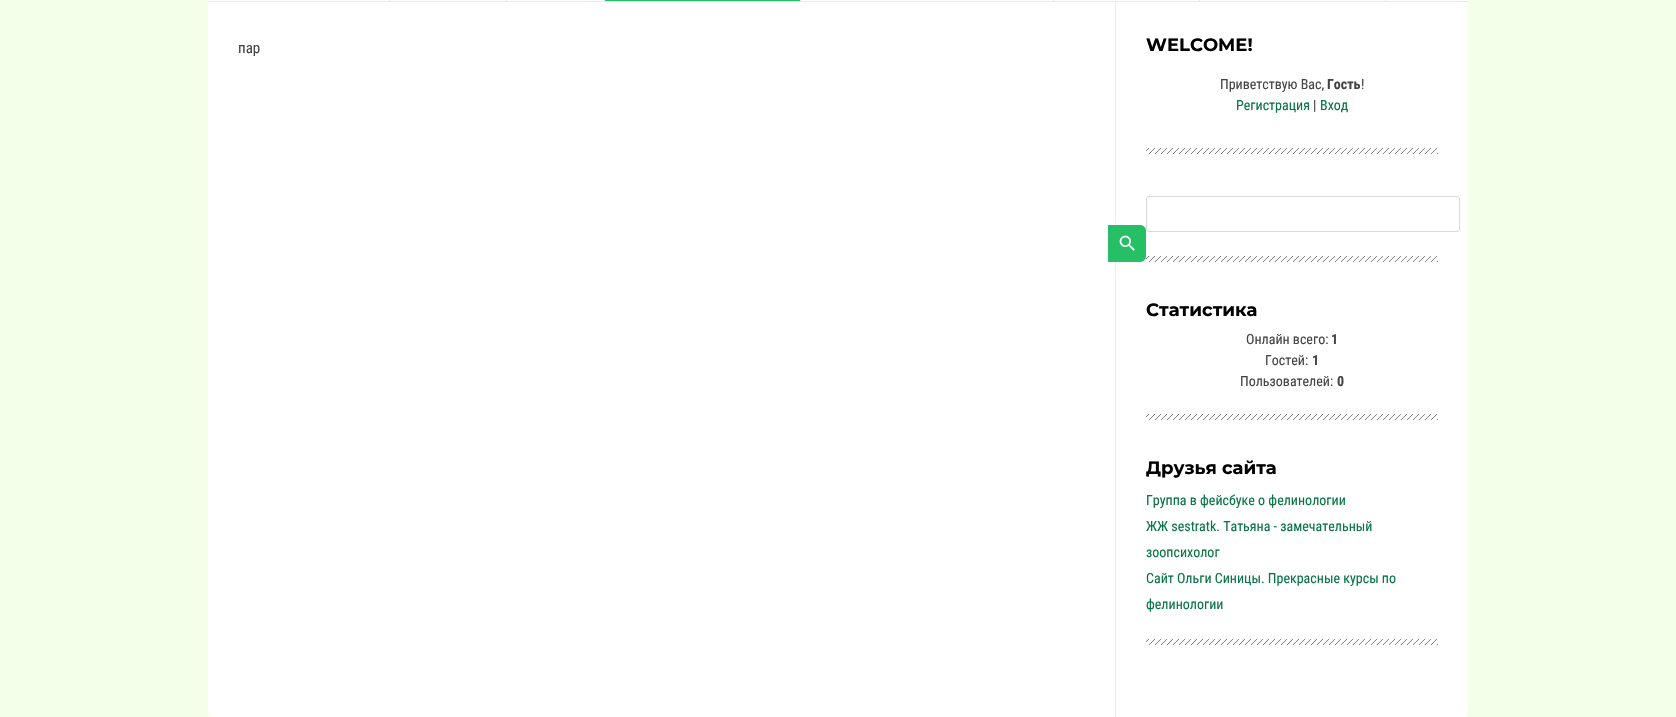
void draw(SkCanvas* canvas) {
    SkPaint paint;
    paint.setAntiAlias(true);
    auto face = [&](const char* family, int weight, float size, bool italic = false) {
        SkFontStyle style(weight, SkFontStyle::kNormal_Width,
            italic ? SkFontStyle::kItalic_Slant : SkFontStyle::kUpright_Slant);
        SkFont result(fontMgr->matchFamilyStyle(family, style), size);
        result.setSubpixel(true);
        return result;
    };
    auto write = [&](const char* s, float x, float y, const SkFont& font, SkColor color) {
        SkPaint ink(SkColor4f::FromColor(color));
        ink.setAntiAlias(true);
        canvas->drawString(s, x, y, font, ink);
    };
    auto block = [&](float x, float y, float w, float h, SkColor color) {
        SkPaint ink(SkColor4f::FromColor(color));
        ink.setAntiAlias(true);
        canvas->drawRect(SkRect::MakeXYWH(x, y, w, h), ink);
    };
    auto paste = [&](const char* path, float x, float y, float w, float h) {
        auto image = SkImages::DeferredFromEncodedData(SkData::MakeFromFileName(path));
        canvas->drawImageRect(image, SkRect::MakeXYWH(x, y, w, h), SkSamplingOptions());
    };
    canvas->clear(SkColorSetRGB(244, 255, 233));
    block(208, 0, 1260, 1, SK_ColorWHITE);
    block(208, 1, 1260, 1, SkColorSetRGB(229, 235, 240));
    block(389, 0, 1, 1, SkColorSetRGB(229, 235, 240));
    block(506, 0, 1, 1, SkColorSetRGB(229, 235, 240));
    block(604, 0, 1, 1, SkColorSetRGB(229, 235, 240));
    block(800, 0, 1, 1, SkColorSetRGB(229, 235, 240));
    block(605, 0, 195, 1, SkColorSetRGB(38, 191, 102));
    block(1053, 0, 1, 1, SkColorSetRGB(229, 235, 240));
    block(1199, 0, 1, 1, SkColorSetRGB(229, 235, 240));
    block(1385, 0, 1, 1, SkColorSetRGB(229, 235, 240));
    paint.setColor(SK_ColorWHITE);
    canvas->drawPath(SkPathBuilder().moveTo(208, 2).lineTo(1468, 2).lineTo(1468, 710).cubicTo(1468, 715.5f, 1463.5f, 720, 1458, 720).lineTo(218, 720).cubicTo(212.5f, 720, 208, 715.5f, 208, 710).close().detach(), paint);
    auto kFont1 = face("Roboto Condensed", 400, 15);
    write("пар", 238, 53, kFont1, SkColorSetRGB(68, 68, 68));
    block(1115, 2, 1, 715, SkColorSetRGB(229, 235, 240));
    auto kFont2 = face("Montserrat", 700, 18);
    write("WELCOME!", 1146, 51, kFont2, SK_ColorBLACK);
    auto kFont3 = face("Roboto Condensed", 400, 14);
    write("Приветствую Вас,", 1220, 89, kFont3, SkColorSetRGB(68, 68, 68));
    auto kFont4 = face("Roboto Condensed", 700, 14);
    write("Гость", 1327, 89, kFont4, SkColorSetRGB(68, 68, 68));
    write("!", 1361, 89, kFont3, SkColorSetRGB(68, 68, 68));
    write("Регистрация", 1236, 110, kFont3, SkColorSetRGB(9, 117, 70));
    write("|", 1313, 110, kFont3, SkColorSetRGB(68, 68, 68));
    write("Вход", 1320, 110, kFont3, SkColorSetRGB(9, 117, 70));
    paste("pic1.png", 1146, 148, 292, 6);
    paint.setStyle(SkPaint::kStroke_Style);
    paint.setStrokeWidth(1);
    paint.setColor(SkColorSetRGB(216, 216, 216));
    canvas->drawRoundRect(SkRect::MakeXYWH(1146.5f, 196.5f, 313, 35), 2.5f, 2.5f, paint);
    paint.setStyle(SkPaint::kFill_Style);
    paint.setColor(SkColorSetRGB(38, 191, 102));
    canvas->drawPath(SkPathBuilder().moveTo(1108, 225).lineTo(1140, 225).cubicTo(1143.5f, 225, 1146, 227.5f, 1146, 231).lineTo(1146, 256).cubicTo(1146, 259.5f, 1143.5f, 262, 1140, 262).lineTo(1108, 262).close().detach(), paint);
    paste("pic2.png", 1119, 235, 16, 16);
    paste("pic1.png", 1146, 256, 292, 6);
    write("Статистика", 1146, 316, kFont2, SK_ColorBLACK);
    write("Онлайн всего:", 1246, 344, kFont3, SkColorSetRGB(68, 68, 68));
    write("1", 1331, 344, kFont4, SkColorSetRGB(68, 68, 68));
    write("Гостей:", 1265, 365, kFont3, SkColorSetRGB(68, 68, 68));
    write("1", 1312, 365, kFont4, SkColorSetRGB(68, 68, 68));
    write("Пользователей:", 1240, 386, kFont3, SkColorSetRGB(68, 68, 68));
    write("0", 1337, 386, kFont4, SkColorSetRGB(68, 68, 68));
    paste("pic1.png", 1146, 414, 292, 6);
    write("Друзья сайта", 1146, 474, kFont2, SK_ColorBLACK);
    write("Группа в фейсбуке о фелинологии", 1146, 505, kFont3, SkColorSetRGB(9, 117, 70));
    write("ЖЖ sestratk. Татьяна - замечательный", 1146, 531, kFont3, SkColorSetRGB(9, 117, 70));
    write("зоопсихолог", 1146, 557, kFont3, SkColorSetRGB(9, 117, 70));
    write("Сайт Ольги Синицы. Прекрасные курсы по", 1146, 583, kFont3, SkColorSetRGB(9, 117, 70));
    write("фелинологии", 1146, 609, kFont3, SkColorSetRGB(9, 117, 70));
    paste("pic1.png", 1146, 639, 292, 6);
}
